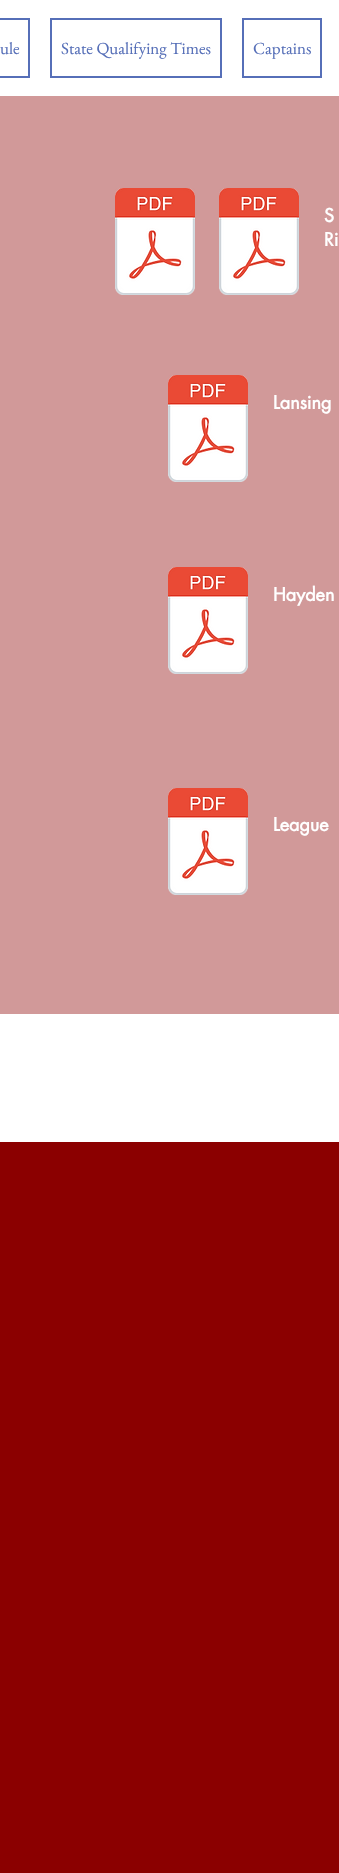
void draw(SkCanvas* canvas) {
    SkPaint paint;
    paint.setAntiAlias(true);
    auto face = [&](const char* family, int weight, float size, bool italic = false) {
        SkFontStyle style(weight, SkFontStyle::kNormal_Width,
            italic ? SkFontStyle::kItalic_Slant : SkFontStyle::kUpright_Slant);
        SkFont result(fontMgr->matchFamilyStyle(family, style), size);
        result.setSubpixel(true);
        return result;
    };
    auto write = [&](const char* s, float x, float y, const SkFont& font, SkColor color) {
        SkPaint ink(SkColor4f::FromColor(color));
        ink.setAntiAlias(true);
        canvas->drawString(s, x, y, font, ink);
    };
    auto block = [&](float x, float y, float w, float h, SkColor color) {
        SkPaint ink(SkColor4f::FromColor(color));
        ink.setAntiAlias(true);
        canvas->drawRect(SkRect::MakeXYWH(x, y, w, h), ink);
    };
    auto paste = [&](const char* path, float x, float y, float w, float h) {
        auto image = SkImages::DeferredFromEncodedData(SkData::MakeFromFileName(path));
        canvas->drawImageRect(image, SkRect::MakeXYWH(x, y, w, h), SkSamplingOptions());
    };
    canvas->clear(SkColorSetRGB(139, 0, 0));
    block(0, 0, 339, 96, SK_ColorWHITE);
    paint.setStyle(SkPaint::kStroke_Style);
    paint.setStrokeWidth(2);
    paint.setColor(SkColorSetRGB(86, 111, 184));
    canvas->drawRect(SkRect::MakeXYWH(-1, 19, 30, 58), paint);
    auto kFont1 = face("EB Garamond", 400, 17);
    write("ule", 0, 54, kFont1, SkColorSetRGB(86, 111, 184));
    canvas->drawRect(SkRect::MakeXYWH(51, 19, 170, 58), paint);
    write("State Qualifying Times", 61, 54, kFont1, SkColorSetRGB(86, 111, 184));
    canvas->drawRect(SkRect::MakeXYWH(243, 19, 78, 58), paint);
    write("Captains", 253, 54, kFont1, SkColorSetRGB(86, 111, 184));
    block(0, 96, 339, 918, SkColorSetRGB(209, 153, 153));
    paste("pic1.png", 115, 188, 80, 107);
    paste("pic1.png", 219, 188, 80, 107);
    auto kFont2 = face("futura", 700, 18);
    write("S", 324, 222, kFont2, SK_ColorWHITE);
    write("Ri", 324, 246, kFont2, SK_ColorWHITE);
    paste("pic1.png", 168, 375, 80, 107);
    write("Lansing", 273, 409, kFont2, SK_ColorWHITE);
    paste("pic1.png", 168, 567, 80, 107);
    write("Hayden", 273, 601, kFont2, SK_ColorWHITE);
    paste("pic1.png", 168, 788, 80, 107);
    write("League", 273, 831, kFont2, SK_ColorWHITE);
    block(0, 1014, 339, 128, SK_ColorWHITE);
}
